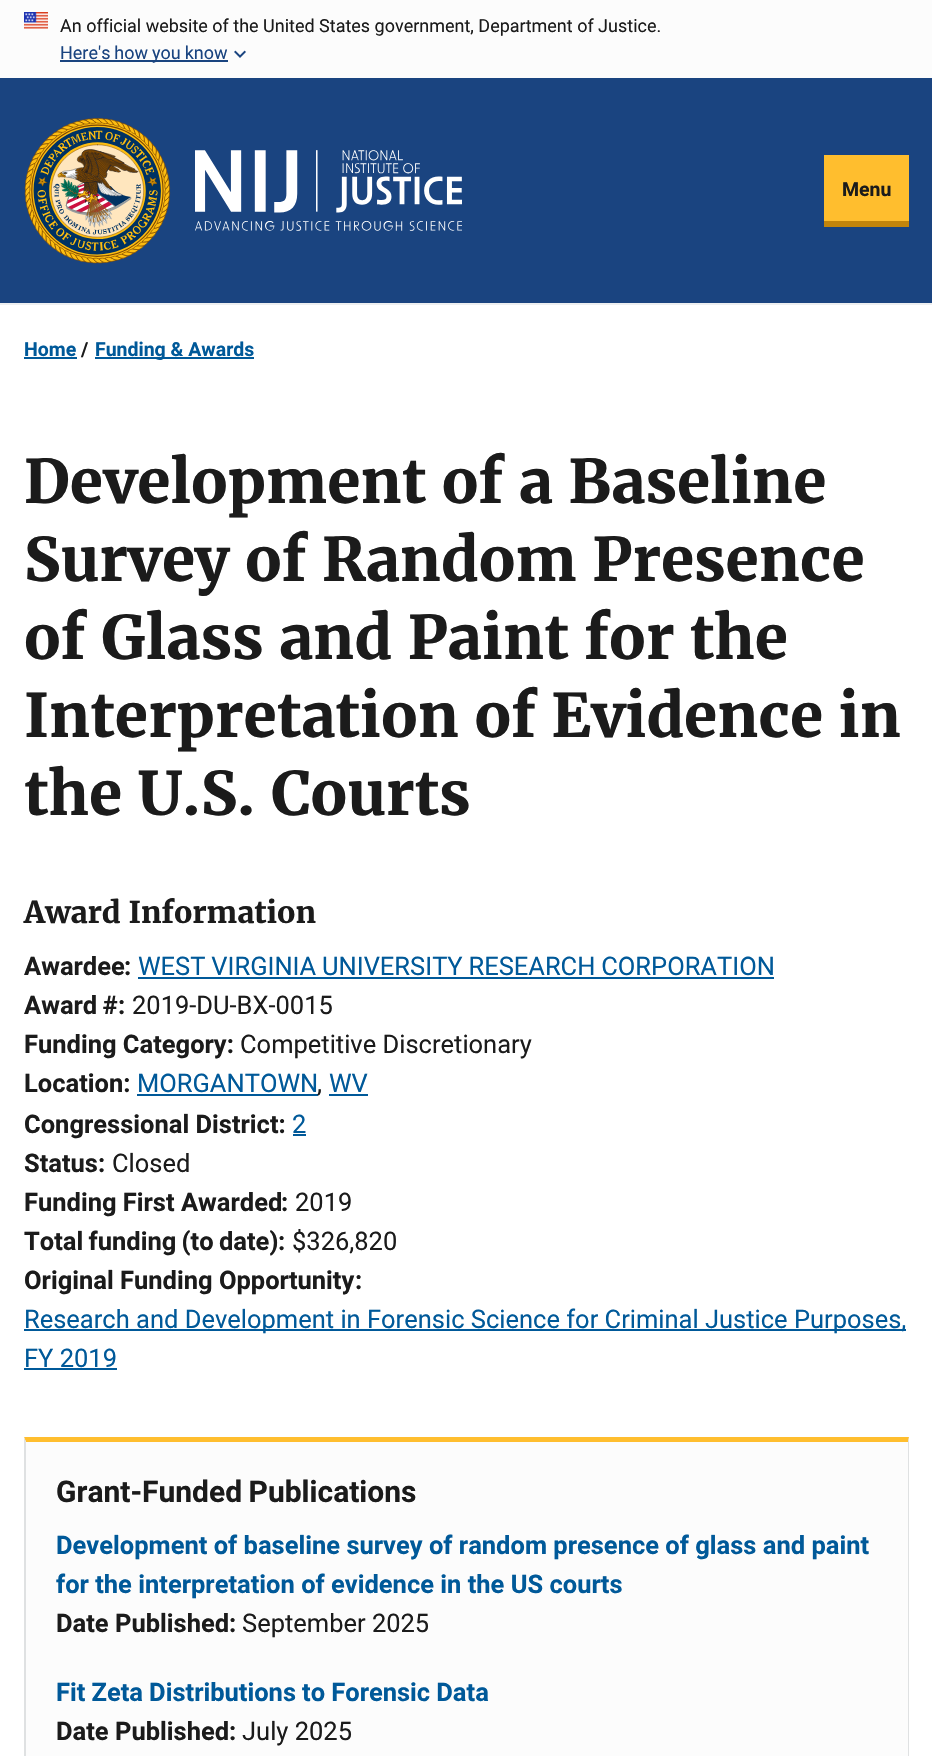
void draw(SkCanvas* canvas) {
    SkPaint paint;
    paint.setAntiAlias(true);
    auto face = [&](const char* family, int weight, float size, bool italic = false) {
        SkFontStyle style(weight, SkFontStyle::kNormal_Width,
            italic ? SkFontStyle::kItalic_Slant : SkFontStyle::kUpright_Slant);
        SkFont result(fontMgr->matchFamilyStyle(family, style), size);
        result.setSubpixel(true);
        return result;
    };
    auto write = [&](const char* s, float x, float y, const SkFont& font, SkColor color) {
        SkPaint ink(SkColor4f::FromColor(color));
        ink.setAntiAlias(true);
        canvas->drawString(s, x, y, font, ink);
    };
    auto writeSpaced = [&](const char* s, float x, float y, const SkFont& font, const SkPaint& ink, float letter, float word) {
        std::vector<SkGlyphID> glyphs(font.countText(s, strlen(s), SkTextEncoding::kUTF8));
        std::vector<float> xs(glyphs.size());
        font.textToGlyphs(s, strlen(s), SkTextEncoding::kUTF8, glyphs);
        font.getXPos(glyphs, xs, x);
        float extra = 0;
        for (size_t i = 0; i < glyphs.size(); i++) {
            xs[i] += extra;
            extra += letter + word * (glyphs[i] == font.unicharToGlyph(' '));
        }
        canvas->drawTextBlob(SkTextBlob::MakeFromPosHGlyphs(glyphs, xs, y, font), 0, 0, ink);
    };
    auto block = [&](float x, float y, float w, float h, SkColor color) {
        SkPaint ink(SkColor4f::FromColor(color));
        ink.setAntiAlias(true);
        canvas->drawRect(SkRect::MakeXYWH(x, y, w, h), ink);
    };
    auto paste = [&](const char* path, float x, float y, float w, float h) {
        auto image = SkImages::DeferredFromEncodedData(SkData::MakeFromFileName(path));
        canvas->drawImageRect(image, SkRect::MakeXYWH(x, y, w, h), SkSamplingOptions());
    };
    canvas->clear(SK_ColorWHITE);
    block(0, 0, 932, 78, SkColorSetRGB(252, 252, 252));
    paste("pic1.png", 24, 12, 24, 17);
    auto kFont1 = face("Roboto", 400, 18);
    write("An official website of the United States government, Department of Justice.", 60, 32, kFont1, SkColorSetRGB(27, 27, 27));
    block(60, 60, 168, 2, SkColorSetRGB(26, 68, 128));
    paint.setColor(SkColorSetRGB(26, 68, 128));
    writeSpaced("Here's how you know", 60, 59, kFont1, paint, 0, -0.5f);
    paste("pic2.png", 234, 50, 12, 8);
    block(0, 78, 932, 225, SkColorSetRGB(26, 68, 128));
    block(0, 303, 932, 2, SkColorSetRGB(237, 239, 240));
    paste("pic3.png", 24, 118, 147, 146);
    paste("pic4.png", 195, 150, 267, 81);
    block(824, 155, 85, 66, SkColorSetRGB(255, 190, 46));
    auto kFont2 = face("Roboto", 700, 19.5f);
    write("Menu", 842, 196, kFont2, SkColorSetRGB(27, 27, 27));
    block(824, 221, 85, 6, SkColorSetRGB(194, 133, 12));
    write("Home", 24, 356, kFont2, SkColorSetRGB(0, 89, 153));
    block(24, 357, 53, 2, SkColorSetRGB(0, 89, 153));
    write("/", 81, 356, kFont2, SkColorSetRGB(27, 27, 27));
    block(95, 357, 159, 2, SkColorSetRGB(0, 89, 153));
    write("Funding & Awards", 95, 356, kFont2, SkColorSetRGB(0, 89, 153));
    auto kFont3 = face("Merriweather", 700, 60);
    write("Development of a Baseline", 24, 503, kFont3, SkColorSetRGB(27, 27, 27));
    write("Survey of Random Presence", 24, 581, kFont3, SkColorSetRGB(27, 27, 27));
    write("of Glass and Paint for the", 24, 659, kFont3, SkColorSetRGB(27, 27, 27));
    write("Interpretation of Evidence in", 24, 737, kFont3, SkColorSetRGB(27, 27, 27));
    write("the U.S. Courts", 24, 815, kFont3, SkColorSetRGB(27, 27, 27));
    auto kFont4 = face("Merriweather", 700, 30);
    write("Award Information", 24, 923, kFont4, SkColorSetRGB(27, 27, 27));
    auto kFont5 = face("Roboto", 700, 25.5f);
    write("Awardee", 24, 975, kFont5, SkColorSetRGB(27, 27, 27));
    write(":", 124, 975, kFont5, SkColorSetRGB(27, 27, 27));
    auto kFont6 = face("Roboto", 400, 25.5f);
    paint.setColor(SkColorSetRGB(0, 89, 153));
    writeSpaced("WEST VIRGINIA UNIVERSITY RESEARCH CORPORATION", 138, 975, kFont6, paint, 0, -0.5f);
    block(138, 977, 636, 2, SkColorSetRGB(0, 89, 153));
    paint.setColor(SkColorSetRGB(27, 27, 27));
    writeSpaced("Award #", 24, 1014, kFont5, paint, 0, -1);
    write(":", 118, 1014, kFont5, SkColorSetRGB(27, 27, 27));
    write("2019-DU-BX-0015", 132, 1014, kFont6, SkColorSetRGB(27, 27, 27));
    write("Funding Category:", 24, 1053, kFont5, SkColorSetRGB(27, 27, 27));
    write("Competitive Discretionary", 240, 1053, kFont6, SkColorSetRGB(27, 27, 27));
    write("Location:", 24, 1092, kFont5, SkColorSetRGB(27, 27, 27));
    write("MORGANTOWN", 137, 1092, kFont6, SkColorSetRGB(0, 89, 153));
    block(137, 1094, 181, 2, SkColorSetRGB(0, 89, 153));
    write(",", 317, 1092, kFont6, SkColorSetRGB(27, 27, 27));
    write("WV", 329, 1092, kFont6, SkColorSetRGB(0, 89, 153));
    block(329, 1094, 39, 2, SkColorSetRGB(0, 89, 153));
    write("Congressional District:", 24, 1133, kFont5, SkColorSetRGB(27, 27, 27));
    write("2", 292, 1133, kFont6, SkColorSetRGB(0, 89, 153));
    block(293, 1134, 13, 2, SkColorSetRGB(0, 89, 153));
    write("Status:", 24, 1172, kFont5, SkColorSetRGB(27, 27, 27));
    write("Closed", 112, 1172, kFont6, SkColorSetRGB(27, 27, 27));
    write("Funding First Awarded", 24, 1211, kFont5, SkColorSetRGB(27, 27, 27));
    write(":", 281, 1211, kFont5, SkColorSetRGB(27, 27, 27));
    write("2019", 295, 1211, kFont6, SkColorSetRGB(27, 27, 27));
    writeSpaced("Total funding (to date)", 24, 1250, kFont5, paint, 0, -1);
    write(":", 278, 1250, kFont5, SkColorSetRGB(27, 27, 27));
    write("$326,820", 292, 1250, kFont6, SkColorSetRGB(27, 27, 27));
    write("Original Funding Opportunity", 24, 1289, kFont5, SkColorSetRGB(27, 27, 27));
    write(":", 355, 1289, kFont5, SkColorSetRGB(27, 27, 27));
    block(24, 1329, 882, 2, SkColorSetRGB(0, 89, 153));
    write("Research and Development in Forensic Science for Criminal Justice Purposes,", 24, 1328, kFont6, SkColorSetRGB(0, 89, 153));
    write("FY 2019", 24, 1367, kFont6, SkColorSetRGB(0, 89, 153));
    block(24, 1368, 93, 2, SkColorSetRGB(0, 89, 153));
    block(26, 1442, 882, 314, SkColorSetRGB(252, 252, 252));
    paint.setColor(SkColorSetRGB(255, 190, 46));
    canvas->drawPath(SkPathBuilder().moveTo(24, 1437).lineTo(909, 1437).lineTo(908, 1442).lineTo(26, 1442).close().detach(), paint);
    paint.setColor(SkColorSetRGB(223, 225, 226));
    canvas->drawPath(SkPathBuilder().moveTo(909, 1437).lineTo(909, 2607).lineTo(908, 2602).lineTo(908, 1442).close().detach(), paint);
    canvas->drawPath(SkPathBuilder().moveTo(24, 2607).lineTo(24, 1437).lineTo(26, 1442).lineTo(26, 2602).close().detach(), paint);
    auto kFont7 = face("Roboto", 700, 30);
    paint.setColor(SkColorSetRGB(27, 27, 27));
    writeSpaced("Grant-Funded Publications", 56, 1502, kFont7, paint, 0, -1);
    write("Development of baseline survey of random presence of glass and paint", 56, 1554, kFont5, SkColorSetRGB(0, 89, 153));
    write("for the interpretation of evidence in the US courts", 56, 1593, kFont5, SkColorSetRGB(0, 89, 153));
    write("Date Published:", 56, 1632, kFont5, SkColorSetRGB(27, 27, 27));
    write("September 2025", 242, 1632, kFont6, SkColorSetRGB(27, 27, 27));
    paint.setColor(SkColorSetRGB(0, 89, 153));
    writeSpaced("Fit Zeta Distributions to Forensic Data", 56, 1701, kFont5, paint, 0, -0.25f);
    write("Date Published:", 56, 1740, kFont5, SkColorSetRGB(27, 27, 27));
    write("July 2025", 242, 1740, kFont6, SkColorSetRGB(27, 27, 27));
}
